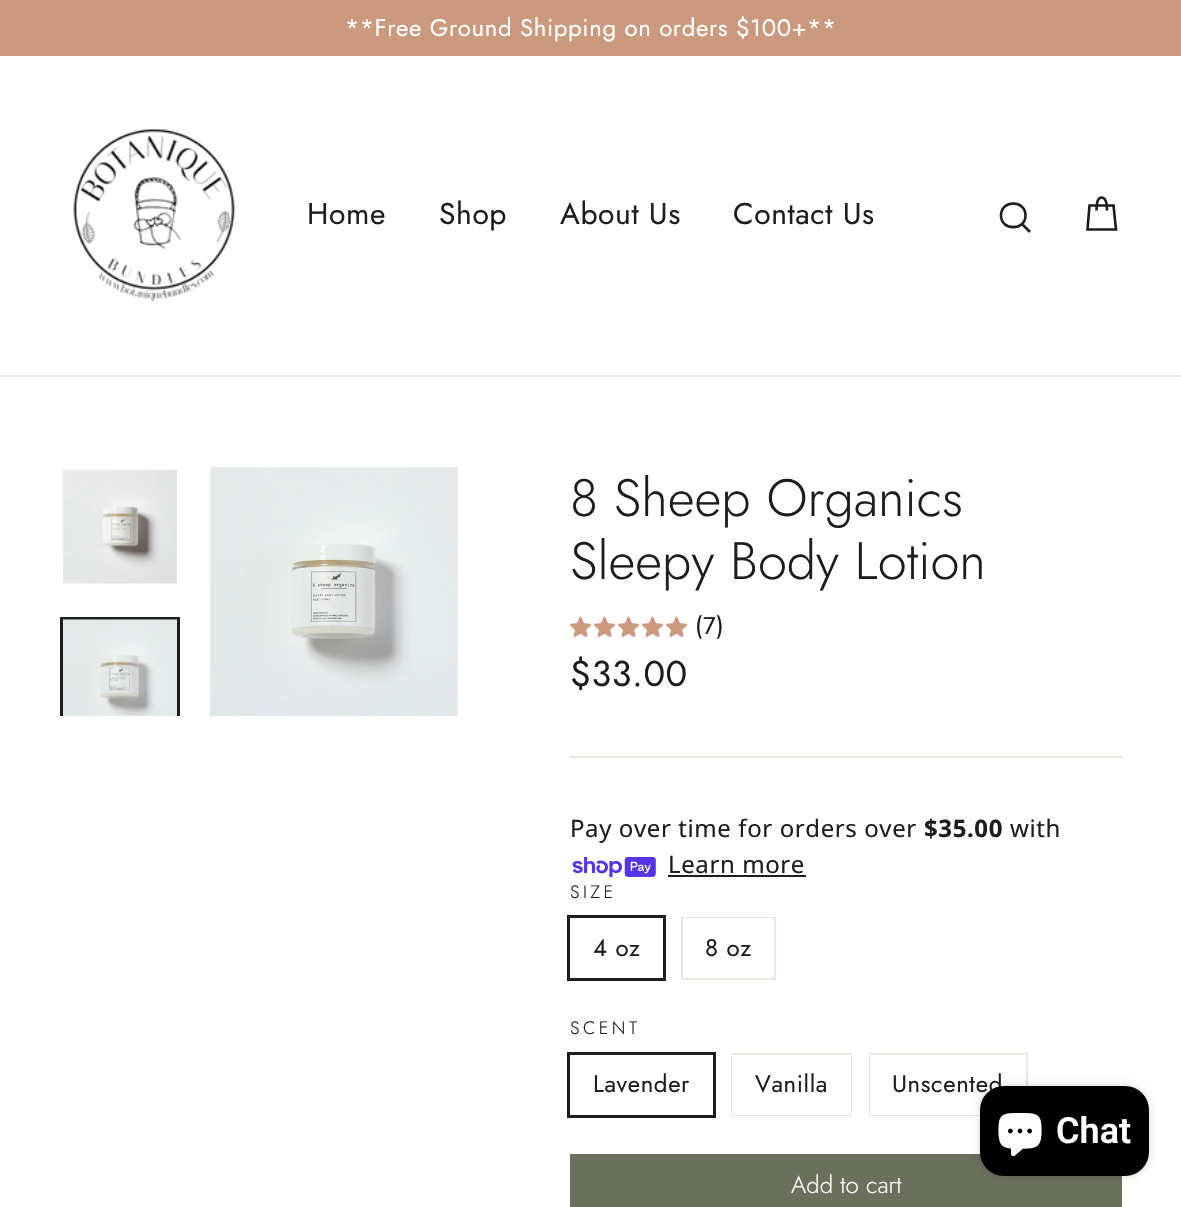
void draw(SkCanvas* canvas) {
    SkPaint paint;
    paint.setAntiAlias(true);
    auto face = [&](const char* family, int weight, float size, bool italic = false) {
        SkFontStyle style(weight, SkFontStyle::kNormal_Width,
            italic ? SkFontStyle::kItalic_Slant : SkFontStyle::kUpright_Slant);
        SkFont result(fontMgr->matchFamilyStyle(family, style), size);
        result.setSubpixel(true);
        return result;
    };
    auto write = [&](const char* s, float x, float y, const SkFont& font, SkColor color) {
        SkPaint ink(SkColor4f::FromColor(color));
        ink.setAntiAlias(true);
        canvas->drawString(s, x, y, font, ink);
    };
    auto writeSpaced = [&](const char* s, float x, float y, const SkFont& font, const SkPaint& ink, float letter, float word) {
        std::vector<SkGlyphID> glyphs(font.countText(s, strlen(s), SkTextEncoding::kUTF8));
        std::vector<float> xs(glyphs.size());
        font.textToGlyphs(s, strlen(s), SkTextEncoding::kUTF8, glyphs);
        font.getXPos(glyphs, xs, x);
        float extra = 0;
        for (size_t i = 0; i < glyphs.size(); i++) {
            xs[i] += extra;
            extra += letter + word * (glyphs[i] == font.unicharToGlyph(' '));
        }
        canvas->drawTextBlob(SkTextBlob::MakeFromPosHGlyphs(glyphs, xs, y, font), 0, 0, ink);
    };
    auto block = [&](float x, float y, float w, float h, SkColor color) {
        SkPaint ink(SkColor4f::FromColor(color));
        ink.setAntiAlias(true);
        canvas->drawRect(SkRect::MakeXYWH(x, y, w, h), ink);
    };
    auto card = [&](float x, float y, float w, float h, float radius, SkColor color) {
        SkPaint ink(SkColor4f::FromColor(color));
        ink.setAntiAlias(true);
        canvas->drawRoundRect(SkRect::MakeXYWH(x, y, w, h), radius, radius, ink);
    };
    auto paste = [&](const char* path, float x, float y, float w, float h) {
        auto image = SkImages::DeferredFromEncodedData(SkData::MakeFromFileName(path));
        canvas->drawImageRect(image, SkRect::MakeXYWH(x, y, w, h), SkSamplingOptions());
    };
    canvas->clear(SK_ColorWHITE);
    block(0, 0, 1181, 56, SkColorSetRGB(203, 153, 126));
    auto kFont1 = face("Jost", 400, 24);
    paint.setColor(SK_ColorWHITE);
    writeSpaced("**Free Ground Shipping on orders $100+**", 345, 36, kFont1, paint, 0.6f, 0);
    block(0, 375, 1181, 2, SkColorSetRGB(232, 232, 225));
    paste("pic1.png", 73, 129, 162, 173);
    auto kFont2 = face("Jost", 400, 30);
    paint.setColor(SkColorSetRGB(28, 29, 29));
    writeSpaced("Home", 307, 224, kFont2, paint, 0.6f, 0);
    writeSpaced("Shop", 439, 224, kFont2, paint, 0.6f, 0);
    writeSpaced("About Us", 560, 224, kFont2, paint, 0.6f, 0);
    writeSpaced("Contact Us", 733, 224, kFont2, paint, 0.6f, 0);
    paint.setStyle(SkPaint::kStroke_Style);
    paint.setStrokeWidth(2.6f);
    canvas->drawPath(SkPathBuilder().moveTo(1025.5f, 215.5f).cubicTo(1025.5f, 231, 1001, 231, 1001, 215.5f).cubicTo(1001, 199.5f, 1025.5f, 199.5f, 1025.5f, 215.5f).close().moveTo(1030, 232).lineTo(1022, 224).detach(), paint);
    canvas->drawPath(SkPathBuilder().moveTo(1096.5f, 210.5f).cubicTo(1096.5f, 200, 1098.5f, 197.5f, 1101.5f, 197.5f).cubicTo(1104.5f, 197.5f, 1107, 200, 1107, 210.5f).moveTo(1089.5f, 205.5f).lineTo(1113.5f, 205.5f).lineTo(1116, 229.5f).lineTo(1087.5f, 229.5f).close().detach(), paint);
    paste("pic2.png", 63, 470, 114, 114);
    canvas->save();
    canvas->clipRect(SkRect::MakeXYWH(60, 467, 120, 249));
    paint.setStrokeWidth(3);
    canvas->drawRect(SkRect::MakeXYWH(61.5f, 618.5f, 117, 117), paint);
    canvas->restore();
    paste("pic3.png", 63, 619, 114, 97);
    paste("pic4.png", 210, 467, 248, 249);
    auto kFont3 = face("Jost", 300, 52.5f);
    write("8 Sheep Organics", 570, 516, kFont3, SkColorSetRGB(28, 29, 29));
    write("Sleepy Body Lotion", 570, 579, kFont3, SkColorSetRGB(28, 29, 29));
    paste("pic5.png", 570, 617, 21, 20);
    paste("pic5.png", 594, 617, 21, 20);
    paste("pic5.png", 618, 617, 21, 20);
    paste("pic5.png", 642, 617, 21, 20);
    paste("pic5.png", 666, 617, 21, 20);
    paint.setStyle(SkPaint::kFill_Style);
    writeSpaced("(7)", 695, 634, kFont1, paint, 0.6f, 0);
    auto kFont4 = face("Jost", 400, 36);
    writeSpaced("$33.00", 570, 686, kFont4, paint, 0.6f, 0);
    block(570, 756, 552, 2, SkColorSetRGB(232, 232, 225));
    auto kFont5 = face("Noto Sans", 400, 24);
    writeSpaced("Pay over time for orders over", 570, 837, kFont5, paint, 0.6f, 0);
    auto kFont6 = face("Noto Sans", 700, 24);
    writeSpaced("$35.00", 924, 837, kFont6, paint, 0.6f, 0);
    writeSpaced("with", 1010, 837, kFont5, paint, 0.6f, 0);
    paste("pic6.png", 572, 857, 84, 21);
    writeSpaced("Learn more", 668, 873, kFont5, paint, 0.6f, 0);
    block(668, 875, 138, 2, SkColorSetRGB(28, 29, 29));
    auto kFont7 = face("Jost", 300, 18);
    writeSpaced("SIZE", 570, 898, kFont7, paint, 3.5f, 0);
    paint.setStyle(SkPaint::kStroke_Style);
    canvas->drawRect(SkRect::MakeXYWH(568.5f, 916.5f, 96, 63), paint);
    paint.setStyle(SkPaint::kFill_Style);
    writeSpaced("4 oz", 593, 956, kFont1, paint, 0.6f, 0);
    paint.setStyle(SkPaint::kStroke_Style);
    paint.setStrokeWidth(2);
    paint.setColor(SkColorSetRGB(232, 232, 225));
    canvas->drawRect(SkRect::MakeXYWH(682, 918, 93, 61), paint);
    block(683, 918, 91, 1, SK_ColorWHITE);
    paint.setStyle(SkPaint::kFill_Style);
    paint.setColor(SkColorSetRGB(28, 29, 29));
    writeSpaced("8 oz", 705, 956, kFont1, paint, 0.6f, 0);
    writeSpaced("SCENT", 570, 1034, kFont7, paint, 3.5f, 0);
    paint.setStyle(SkPaint::kStroke_Style);
    paint.setStrokeWidth(3);
    canvas->drawRect(SkRect::MakeXYWH(568.5f, 1053.5f, 146, 63), paint);
    paint.setStyle(SkPaint::kFill_Style);
    writeSpaced("Lavender", 593, 1092, kFont1, paint, 0.6f, 0);
    paint.setStyle(SkPaint::kStroke_Style);
    paint.setStrokeWidth(2);
    paint.setColor(SkColorSetRGB(232, 232, 225));
    canvas->drawRect(SkRect::MakeXYWH(732, 1054, 119, 61), paint);
    block(732, 1055, 119, 60, SK_ColorWHITE);
    paint.setStyle(SkPaint::kFill_Style);
    paint.setColor(SkColorSetRGB(28, 29, 29));
    writeSpaced("Vanilla", 755, 1092, kFont1, paint, 0.6f, 0);
    paint.setStyle(SkPaint::kStroke_Style);
    paint.setColor(SkColorSetRGB(232, 232, 225));
    canvas->drawRect(SkRect::MakeXYWH(870, 1054, 157, 61), paint);
    block(870, 1055, 156, 60, SK_ColorWHITE);
    paint.setStyle(SkPaint::kFill_Style);
    paint.setColor(SkColorSetRGB(28, 29, 29));
    writeSpaced("Unscented", 892, 1092, kFont1, paint, 0.6f, 0);
    block(570, 1154, 552, 53, SkColorSetRGB(107, 112, 92));
    auto kFont8 = face("Jost", 300, 24);
    write("Add to cart", 791, 1193, kFont8, SK_ColorWHITE);
    paint.setColor(SkColorSetARGB(38, 0, 0, 0));
    paint.setMaskFilter(SkMaskFilter::MakeBlur(kNormal_SkBlurStyle, 4));
    canvas->drawRoundRect(SkRect::MakeXYWH(980, 1086, 169, 90), 24, 24, paint);
    paint.setMaskFilter(nullptr);
    card(980, 1086, 169, 90, 24, SK_ColorBLACK);
    paste("pic7.png", 998, 1113, 44, 44);
    auto kFont9 = face("Roboto", 600, 36);
    write("Chat", 1056, 1143, kFont9, SK_ColorWHITE);
}
